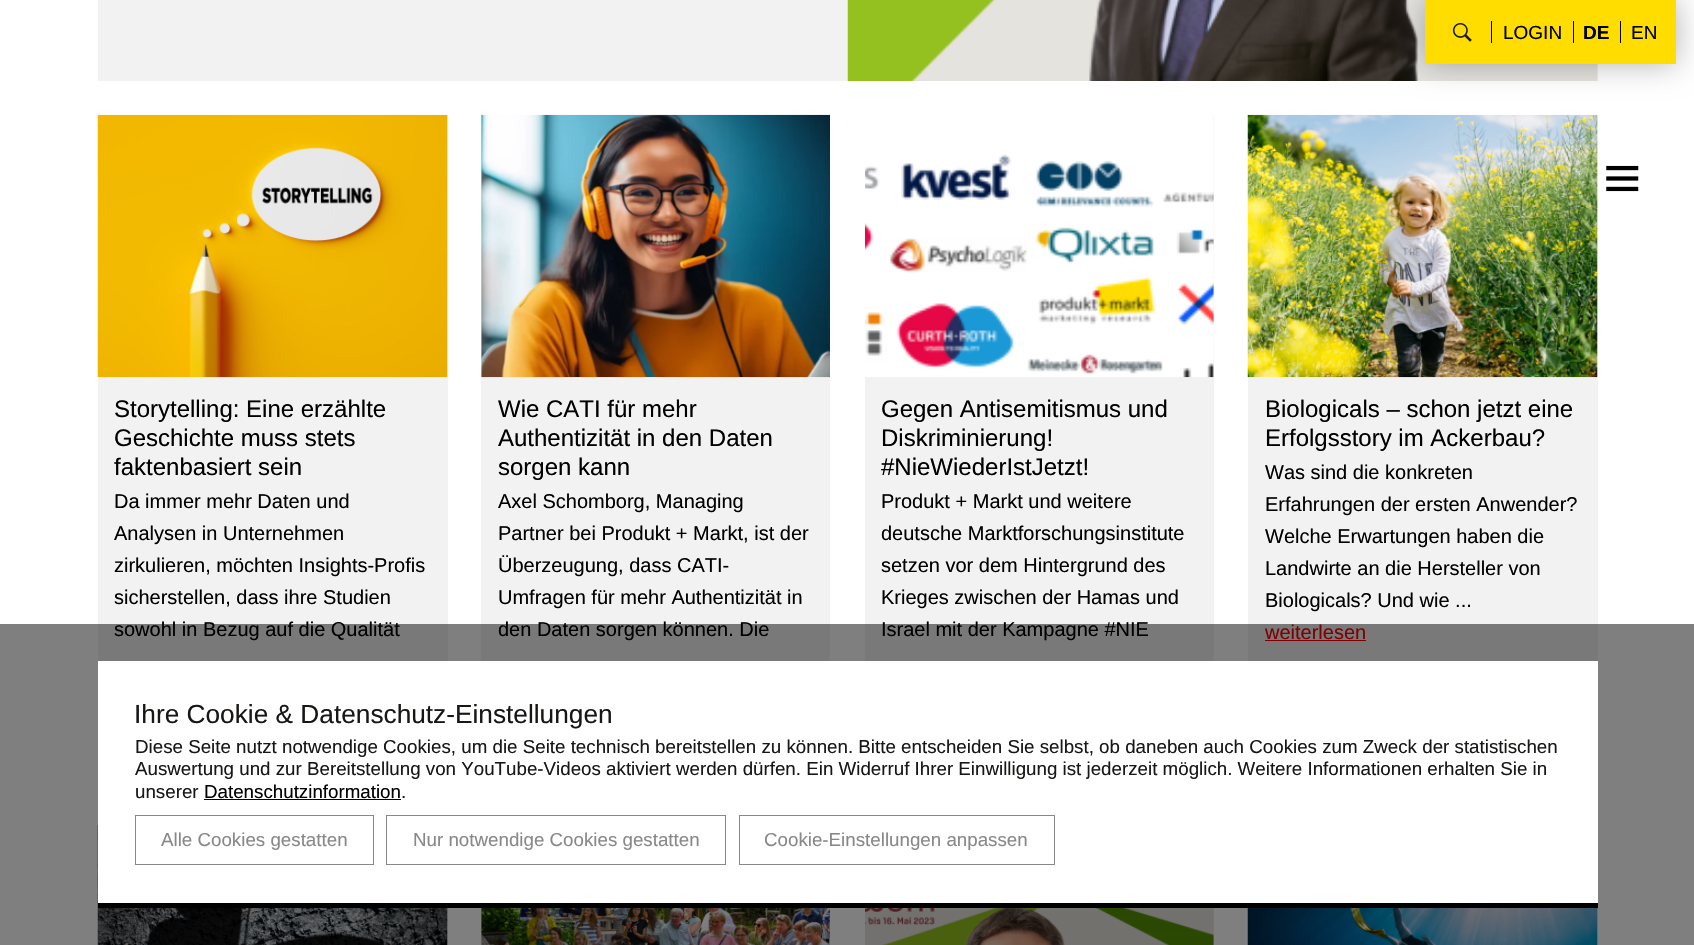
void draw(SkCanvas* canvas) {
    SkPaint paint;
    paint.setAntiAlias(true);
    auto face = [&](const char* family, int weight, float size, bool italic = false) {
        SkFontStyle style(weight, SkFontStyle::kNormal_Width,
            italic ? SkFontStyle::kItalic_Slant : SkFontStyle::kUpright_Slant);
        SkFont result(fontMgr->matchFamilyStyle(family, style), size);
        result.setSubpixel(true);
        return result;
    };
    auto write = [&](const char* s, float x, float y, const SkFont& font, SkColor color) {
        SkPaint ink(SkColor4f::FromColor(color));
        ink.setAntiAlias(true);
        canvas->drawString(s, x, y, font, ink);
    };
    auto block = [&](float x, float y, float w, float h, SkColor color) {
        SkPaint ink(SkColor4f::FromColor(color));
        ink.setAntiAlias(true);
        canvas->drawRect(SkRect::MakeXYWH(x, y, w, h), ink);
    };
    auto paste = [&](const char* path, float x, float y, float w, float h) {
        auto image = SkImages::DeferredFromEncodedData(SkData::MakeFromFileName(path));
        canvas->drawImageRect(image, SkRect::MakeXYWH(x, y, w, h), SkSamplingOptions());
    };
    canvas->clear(SK_ColorWHITE);
    block(98, 0, 1500, 81, SkColorSetRGB(242, 242, 242));
    paste("pic3.png", 847, 0, 751, 81);
    paint.setColor(SkColorSetARGB(77, 0, 0, 0));
    paint.setMaskFilter(SkMaskFilter::MakeBlur(kNormal_SkBlurStyle, 15.5f));
    canvas->drawRect(SkRect::MakeXYWH(1425, 0, 251, 64), paint);
    paint.setMaskFilter(nullptr);
    block(1425, 0, 251, 64, SkColorSetRGB(255, 221, 0));
    paste("pic1.png", 1452, 23, 20, 19);
    block(1491, 21, 1, 22, SK_ColorBLACK);
    auto kFont1 = face("Liberation Sans", 400, 19);
    write("LOGIN", 1503, 39, kFont1, SK_ColorBLACK);
    block(1573, 21, 1, 22, SK_ColorBLACK);
    auto kFont2 = face("Liberation Sans", 700, 19);
    write("DE", 1583, 39, kFont2, SK_ColorBLACK);
    block(1620, 21, 1, 22, SK_ColorBLACK);
    write("EN", 1631, 39, kFont1, SK_ColorBLACK);
    paste("pic2.png", 1606, 165, 33, 27);
    block(98, 115, 350, 546, SkColorSetRGB(242, 242, 242));
    paste("pic4.png", 97, 114, 351, 264);
    auto kFont3 = face("Liberation Sans", 400, 24);
    write("Storytelling: Eine erzählte", 114, 417, kFont3, SK_ColorBLACK);
    write("Geschichte muss stets", 114, 446, kFont3, SK_ColorBLACK);
    write("faktenbasiert sein", 114, 475, kFont3, SK_ColorBLACK);
    auto kFont4 = face("Liberation Sans", 400, 20);
    write("Da immer mehr Daten und", 114, 508, kFont4, SK_ColorBLACK);
    write("Analysen in Unternehmen", 114, 540, kFont4, SK_ColorBLACK);
    write("zirkulieren, möchten Insights-Profis", 114, 572, kFont4, SK_ColorBLACK);
    write("sicherstellen, dass ihre Studien", 114, 604, kFont4, SK_ColorBLACK);
    write("sowohl in Bezug auf die Qualität", 114, 636, kFont4, SK_ColorBLACK);
    block(481, 115, 349, 546, SkColorSetRGB(242, 242, 242));
    paste("pic5.png", 481, 114, 349, 264);
    write("Wie CATI für mehr", 498, 417, kFont3, SK_ColorBLACK);
    write("Authentizität in den Daten", 498, 446, kFont3, SK_ColorBLACK);
    write("sorgen kann", 498, 475, kFont3, SK_ColorBLACK);
    write("Axel Schomborg, Managing", 498, 508, kFont4, SK_ColorBLACK);
    write("Partner bei Produkt + Markt, ist der", 498, 540, kFont4, SK_ColorBLACK);
    write("Überzeugung, dass CATI-", 498, 572, kFont4, SK_ColorBLACK);
    write("Umfragen für mehr Authentizität in", 498, 604, kFont4, SK_ColorBLACK);
    write("den Daten sorgen können. Die", 498, 636, kFont4, SK_ColorBLACK);
    block(865, 115, 349, 546, SkColorSetRGB(242, 242, 242));
    paste("pic6.png", 865, 115, 349, 263);
    write("Gegen Antisemitismus und", 881, 417, kFont3, SK_ColorBLACK);
    write("Diskriminierung!", 881, 446, kFont3, SK_ColorBLACK);
    write("#NieWiederIstJetzt!", 881, 475, kFont3, SK_ColorBLACK);
    write("Produkt + Markt und weitere", 881, 508, kFont4, SK_ColorBLACK);
    write("deutsche Marktforschungsinstitute", 881, 540, kFont4, SK_ColorBLACK);
    write("setzen vor dem Hintergrund des", 881, 572, kFont4, SK_ColorBLACK);
    write("Krieges zwischen der Hamas und", 881, 604, kFont4, SK_ColorBLACK);
    write("Israel mit der Kampagne #NIE", 881, 636, kFont4, SK_ColorBLACK);
    block(1248, 115, 350, 546, SkColorSetRGB(242, 242, 242));
    paste("pic7.png", 1247, 114, 351, 264);
    write("Biologicals – schon jetzt eine", 1265, 417, kFont3, SK_ColorBLACK);
    write("Erfolgsstory im Ackerbau?", 1265, 446, kFont3, SK_ColorBLACK);
    write("Was sind die konkreten", 1265, 479, kFont4, SK_ColorBLACK);
    write("Erfahrungen der ersten Anwender?", 1265, 511, kFont4, SK_ColorBLACK);
    write("Welche Erwartungen haben die", 1265, 543, kFont4, SK_ColorBLACK);
    write("Landwirte an die Hersteller von", 1265, 575, kFont4, SK_ColorBLACK);
    write("Biologicals? Und wie ...", 1265, 607, kFont4, SK_ColorBLACK);
    write("weiterlesen", 1265, 639, kFont4, SkColorSetRGB(255, 0, 0));
    block(1265, 640, 101, 1, SkColorSetRGB(255, 0, 0));
    block(447, 908, 1, 37, SkColorSetRGB(242, 242, 242));
    paste("pic8.png", 97, 825, 351, 120);
    block(481, 908, 1, 37, SkColorSetRGB(242, 242, 242));
    paste("pic9.png", 481, 908, 349, 37);
    block(1213, 908, 1, 37, SkColorSetRGB(242, 242, 242));
    paste("pic10.png", 865, 908, 349, 37);
    block(1597, 908, 1, 37, SkColorSetRGB(242, 242, 242));
    paste("pic11.png", 1247, 908, 351, 37);
    block(0, 624, 1694, 321, SkColorSetARGB(128, 0, 0, 0));
    block(98, 661, 1500, 242, SK_ColorWHITE);
    block(98, 903, 1500, 5, SK_ColorBLACK);
    auto kFont5 = face("Liberation Sans", 400, 26.25f);
    write("Ihre Cookie & Datenschutz-Einstellungen", 134, 723, kFont5, SkColorSetRGB(24, 23, 22));
    auto kFont6 = face("Liberation Sans", 400, 18.75f);
    write("Diese Seite nutzt notwendige Cookies, um die Seite technisch bereitstellen zu können. Bitte entscheiden Sie selbst, ob daneben auch Cookies zum Zweck der statistischen", 135, 753, kFont6, SkColorSetRGB(24, 23, 22));
    write("Auswertung und zur Bereitstellung von YouTube-Videos aktiviert werden dürfen. Ein Widerruf Ihrer Einwilligung ist jederzeit möglich. Weitere Informationen erhalten Sie in", 135, 775, kFont6, SkColorSetRGB(24, 23, 22));
    write("unserer", 135, 798, kFont6, SkColorSetRGB(24, 23, 22));
    write("Datenschutzinformation", 204, 798, kFont6, SK_ColorBLACK);
    block(204, 799, 197, 1, SK_ColorBLACK);
    write(".", 401, 798, kFont6, SkColorSetRGB(24, 23, 22));
    paint.setStyle(SkPaint::kStroke_Style);
    paint.setStrokeWidth(1);
    paint.setColor(SkColorSetRGB(136, 136, 136));
    canvas->drawRect(SkRect::MakeXYWH(135.5f, 815.5f, 238, 49), paint);
    write("Alle Cookies gestatten", 161, 846, kFont6, SkColorSetRGB(136, 136, 136));
    canvas->drawRect(SkRect::MakeXYWH(386.5f, 815.5f, 339, 49), paint);
    write("Nur notwendige Cookies gestatten", 413, 846, kFont6, SkColorSetRGB(136, 136, 136));
    canvas->drawRect(SkRect::MakeXYWH(739.5f, 815.5f, 315, 49), paint);
    write("Cookie-Einstellungen anpassen", 764, 846, kFont6, SkColorSetRGB(136, 136, 136));
}
